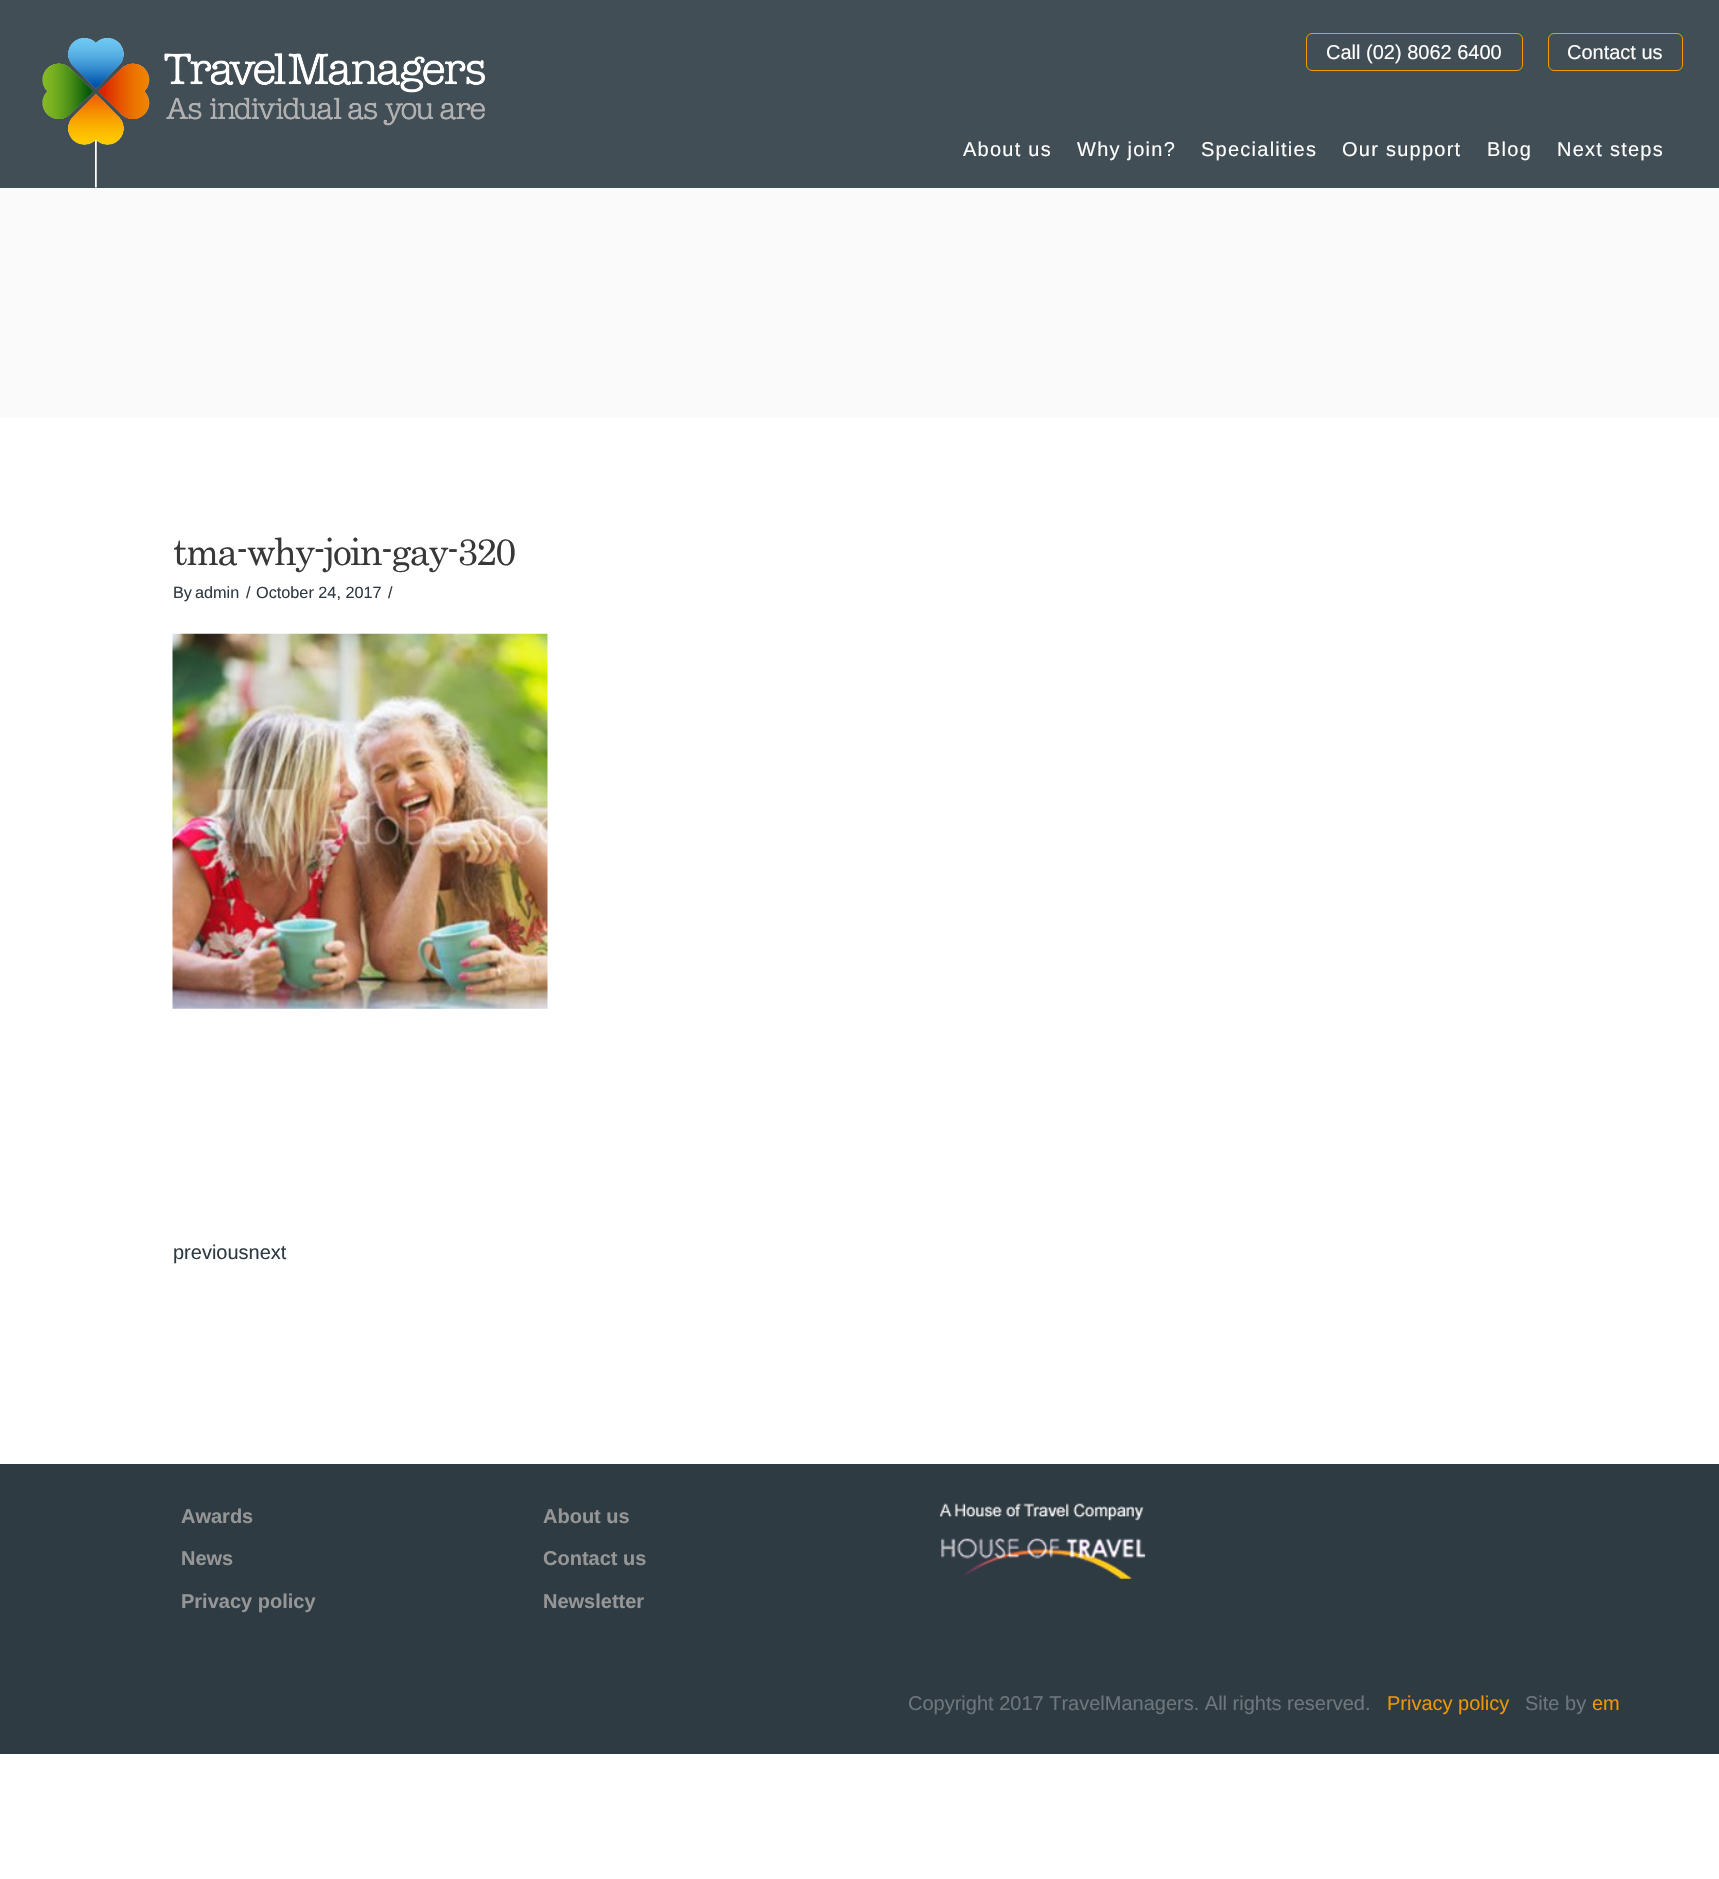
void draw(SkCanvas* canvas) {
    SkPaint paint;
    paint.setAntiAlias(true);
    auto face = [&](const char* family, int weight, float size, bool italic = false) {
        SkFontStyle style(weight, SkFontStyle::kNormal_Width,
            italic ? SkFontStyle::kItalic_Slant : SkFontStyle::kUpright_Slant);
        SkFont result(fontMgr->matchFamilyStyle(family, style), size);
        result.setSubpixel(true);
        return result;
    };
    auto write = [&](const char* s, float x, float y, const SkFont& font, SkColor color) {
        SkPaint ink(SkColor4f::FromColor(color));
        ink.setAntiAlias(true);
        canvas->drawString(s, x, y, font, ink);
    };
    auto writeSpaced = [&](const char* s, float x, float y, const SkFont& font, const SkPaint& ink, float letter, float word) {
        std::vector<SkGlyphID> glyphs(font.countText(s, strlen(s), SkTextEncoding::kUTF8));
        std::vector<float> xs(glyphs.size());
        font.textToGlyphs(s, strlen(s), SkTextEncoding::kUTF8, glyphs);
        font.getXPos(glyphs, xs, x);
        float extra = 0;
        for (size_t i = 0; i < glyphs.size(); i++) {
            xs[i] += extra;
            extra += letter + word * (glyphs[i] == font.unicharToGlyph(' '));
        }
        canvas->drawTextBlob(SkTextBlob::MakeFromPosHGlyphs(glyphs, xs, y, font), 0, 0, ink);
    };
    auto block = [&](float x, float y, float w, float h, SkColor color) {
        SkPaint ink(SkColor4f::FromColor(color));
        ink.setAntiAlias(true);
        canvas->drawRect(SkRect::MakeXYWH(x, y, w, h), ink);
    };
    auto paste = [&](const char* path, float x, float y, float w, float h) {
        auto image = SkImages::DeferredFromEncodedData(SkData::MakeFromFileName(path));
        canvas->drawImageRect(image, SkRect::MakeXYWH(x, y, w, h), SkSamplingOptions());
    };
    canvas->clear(SK_ColorWHITE);
    block(0, 0, 1719, 188, SkColorSetRGB(66, 78, 85));
    paste("pic1.png", 42, 37, 443, 151);
    paint.setStyle(SkPaint::kStroke_Style);
    paint.setStrokeWidth(1);
    paint.setColor(SkColorSetRGB(244, 153, 0));
    canvas->drawRoundRect(SkRect::MakeXYWH(1306.5f, 33.5f, 216, 37), 5.5f, 5.5f, paint);
    auto kFont1 = face("Liberation Sans", 400, 20);
    write("Call (02) 8062 6400", 1326, 59, kFont1, SK_ColorWHITE);
    canvas->drawRoundRect(SkRect::MakeXYWH(1548.5f, 33.5f, 134, 37), 5.5f, 5.5f, paint);
    write("Contact us", 1567, 59, kFont1, SK_ColorWHITE);
    paint.setStyle(SkPaint::kFill_Style);
    paint.setColor(SK_ColorWHITE);
    writeSpaced("About us", 963, 156, kFont1, paint, 1.25f, 0);
    writeSpaced("Why join?", 1077, 156, kFont1, paint, 1.25f, 0);
    writeSpaced("Specialities", 1201, 156, kFont1, paint, 1.25f, 0);
    writeSpaced("Our support", 1342, 156, kFont1, paint, 1.25f, 0);
    writeSpaced("Blog", 1487, 156, kFont1, paint, 1.25f, 0);
    writeSpaced("Next steps", 1557, 156, kFont1, paint, 1.25f, 0);
    block(0, 188, 1719, 230, SkColorSetRGB(250, 250, 250));
    auto kFont2 = face("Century", 400, 37.5f);
    paint.setColor(SkColorSetRGB(56, 56, 56));
    writeSpaced("tma-why-join-gay-320", 173, 565, kFont2, paint, -1.9f, 0);
    auto kFont3 = face("Liberation Sans", 400, 16.25f);
    write("By", 173, 598, kFont3, SkColorSetRGB(46, 59, 67));
    write("admin", 195, 598, kFont3, SkColorSetRGB(46, 59, 67));
    write("/", 246, 598, kFont3, SkColorSetRGB(46, 59, 67));
    write("October 24, 2017", 256, 598, kFont3, SkColorSetRGB(46, 59, 67));
    write("/", 388, 598, kFont3, SkColorSetRGB(46, 59, 67));
    paste("pic2.png", 172, 633, 376, 376);
    write("previousnext", 173, 1259, kFont1, SkColorSetRGB(46, 59, 67));
    block(0, 1464, 1719, 290, SkColorSetRGB(46, 59, 67));
    auto kFont4 = face("Liberation Sans", 700, 20);
    write("Awards", 181, 1523, kFont4, SkColorSetRGB(150, 150, 150));
    write("News", 181, 1565, kFont4, SkColorSetRGB(150, 150, 150));
    write("Privacy policy", 181, 1608, kFont4, SkColorSetRGB(150, 150, 150));
    write("About us", 543, 1523, kFont4, SkColorSetRGB(150, 150, 150));
    write("Contact us", 543, 1565, kFont4, SkColorSetRGB(150, 150, 150));
    write("Newsletter", 543, 1608, kFont4, SkColorSetRGB(150, 150, 150));
    paste("pic3.png", 939, 1503, 207, 76);
    write("Copyright 2017 TravelManagers. All rights reserved.", 908, 1710, kFont1, SkColorSetRGB(109, 118, 123));
    write("Privacy policy", 1387, 1710, kFont1, SkColorSetRGB(235, 151, 3));
    write("Site by", 1525, 1710, kFont1, SkColorSetRGB(109, 118, 123));
    write("em", 1592, 1710, kFont1, SkColorSetRGB(235, 151, 3));
}
